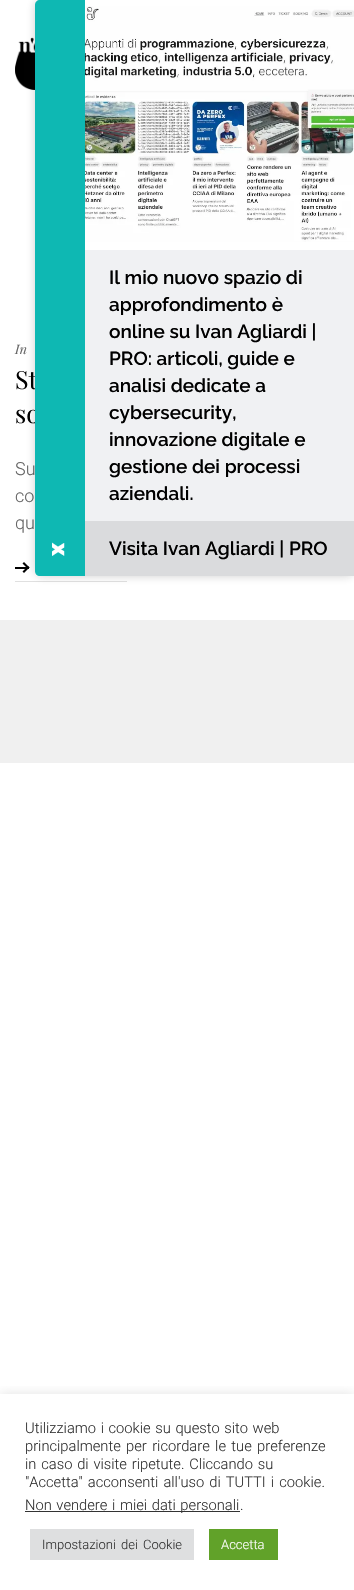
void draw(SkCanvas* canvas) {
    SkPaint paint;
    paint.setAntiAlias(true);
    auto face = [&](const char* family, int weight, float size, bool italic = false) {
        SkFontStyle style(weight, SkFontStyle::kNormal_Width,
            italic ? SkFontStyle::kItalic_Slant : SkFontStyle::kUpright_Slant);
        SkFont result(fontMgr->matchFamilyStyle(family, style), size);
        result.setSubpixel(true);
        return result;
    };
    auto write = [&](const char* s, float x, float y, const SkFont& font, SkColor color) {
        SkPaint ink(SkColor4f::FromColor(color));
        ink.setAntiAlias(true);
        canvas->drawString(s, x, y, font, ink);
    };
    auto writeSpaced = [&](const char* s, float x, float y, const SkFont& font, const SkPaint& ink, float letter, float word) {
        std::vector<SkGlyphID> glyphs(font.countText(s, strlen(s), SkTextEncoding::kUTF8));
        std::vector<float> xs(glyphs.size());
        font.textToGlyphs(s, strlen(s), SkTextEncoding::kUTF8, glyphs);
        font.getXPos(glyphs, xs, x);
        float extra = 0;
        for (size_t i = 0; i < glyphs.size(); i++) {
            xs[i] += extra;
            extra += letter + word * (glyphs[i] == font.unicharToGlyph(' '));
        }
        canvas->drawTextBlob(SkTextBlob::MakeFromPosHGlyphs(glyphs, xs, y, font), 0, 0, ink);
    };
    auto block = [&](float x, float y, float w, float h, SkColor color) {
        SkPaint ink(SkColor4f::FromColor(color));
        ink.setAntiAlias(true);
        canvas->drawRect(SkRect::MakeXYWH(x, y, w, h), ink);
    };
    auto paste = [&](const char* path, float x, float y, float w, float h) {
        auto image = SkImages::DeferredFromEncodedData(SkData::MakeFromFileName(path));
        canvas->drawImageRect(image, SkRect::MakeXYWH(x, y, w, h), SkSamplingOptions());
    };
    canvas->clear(SK_ColorWHITE);
    paste("pic1.png", 15, 37, 20, 53);
    auto kFont1 = face("Playfair Display", 400, 13, true);
    write("In", 15, 354, kFont1, SkColorSetRGB(102, 102, 102));
    auto kFont2 = face("Playfair Display", 400, 25);
    write("St", 15, 389, kFont2, SK_ColorBLACK);
    write("so", 15, 423, kFont2, SK_ColorBLACK);
    auto kFont3 = face("Roboto", 300, 18);
    write("Su", 15, 475, kFont3, SkColorSetRGB(102, 102, 102));
    write("co", 15, 502, kFont3, SkColorSetRGB(102, 102, 102));
    write("qu", 15, 529, kFont3, SkColorSetRGB(102, 102, 102));
    block(15, 581, 112, 1, SkColorSetRGB(224, 224, 224));
    block(15, 567, 14, 2, SK_ColorBLACK);
    paint.setColor(SK_ColorBLACK);
    canvas->drawPath(SkPathBuilder().moveTo(24, 562).lineTo(29.5f, 567.5f).lineTo(28, 569).lineTo(22.5f, 563.5f).close().detach(), paint);
    canvas->drawPath(SkPathBuilder().moveTo(28, 566).lineTo(29.5f, 567.5f).lineTo(24, 573).lineTo(22.5f, 571.5f).close().detach(), paint);
    block(0, 620, 354, 143, SkColorSetRGB(240, 240, 240));
    paint.setColor(SkColorSetARGB(51, 19, 19, 19));
    paint.setMaskFilter(SkMaskFilter::MakeBlur(kNormal_SkBlurStyle, 5));
    canvas->drawRoundRect(SkRect::MakeXYWH(35, 0, 319, 576), 7, 7, paint);
    paint.setMaskFilter(nullptr);
    paint.setColor(SkColorSetRGB(14, 184, 179));
    canvas->drawPath(SkPathBuilder().moveTo(40, 0).lineTo(85, 0).lineTo(85, 576).lineTo(40, 576).cubicTo(37, 576, 35, 574, 35, 571).lineTo(35, 5).cubicTo(35, 2, 37, 0, 40, 0).close().detach(), paint);
    auto kFont4 = face("Raleway", 900, 23);
    canvas->save();
    canvas->rotate(90, 52, 543);
    write("x", 52, 543, kFont4, SK_ColorWHITE);
    canvas->restore();
    block(85, 0, 269, 250, SK_ColorWHITE);
    paste("pic2.png", 85, 6, 269, 236);
    block(85, 250, 269, 271, SkColorSetRGB(240, 241, 243));
    auto kFont5 = face("Raleway", 600, 19);
    write("Il mio nuovo spazio di", 109, 284, kFont5, SK_ColorBLACK);
    write("approfondimento è", 109, 311, kFont5, SK_ColorBLACK);
    write("online su Ivan Agliardi |", 109, 338, kFont5, SK_ColorBLACK);
    write("PRO: articoli, guide e", 109, 365, kFont5, SK_ColorBLACK);
    write("analisi dedicate a", 109, 392, kFont5, SK_ColorBLACK);
    write("cybersecurity,", 109, 419, kFont5, SK_ColorBLACK);
    write("innovazione digitale e", 109, 446, kFont5, SK_ColorBLACK);
    write("gestione dei processi", 109, 473, kFont5, SK_ColorBLACK);
    write("aziendali.", 109, 500, kFont5, SK_ColorBLACK);
    block(85, 521, 269, 55, SkColorSetRGB(218, 219, 221));
    write("Visita Ivan Agliardi | PRO", 109, 555, kFont5, SK_ColorBLACK);
    canvas->save();
    canvas->clipRect(SkRect::MakeXYWH(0, 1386, 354, 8));
    paint.setColor(SkColorSetARGB(77, 172, 171, 171));
    paint.setMaskFilter(SkMaskFilter::MakeBlur(kNormal_SkBlurStyle, 5));
    canvas->drawRect(SkRect::MakeXYWH(0, 1393, 354, 196), paint);
    paint.setMaskFilter(nullptr);
    canvas->restore();
    auto kFont6 = face("Roboto", 300, 14.7f);
    paint.setColor(SkColorSetRGB(51, 51, 51));
    writeSpaced("Utilizziamo i cookie su questo sito web", 25, 1433, kFont6, paint, 0, 1);
    writeSpaced("principalmente per ricordare le tue preferenze", 25, 1451, kFont6, paint, 0, 1.75f);
    writeSpaced("in caso di visite ripetute. Cliccando su", 25, 1469, kFont6, paint, 0, 1.25f);
    writeSpaced("\"Accetta\" acconsenti all'uso di TUTTI i cookie.", 25, 1487, kFont6, paint, 0, 1.5f);
    block(25, 1511, 215, 1, SkColorSetRGB(51, 51, 51));
    writeSpaced("Non vendere i miei dati personali", 25, 1510, kFont6, paint, 0, 1);
    write(".", 240, 1510, kFont6, SkColorSetRGB(51, 51, 51));
    block(30, 1529, 164, 31, SkColorSetRGB(222, 223, 224));
    auto kFont7 = face("Roboto", 300, 13);
    writeSpaced("Impostazioni dei Cookie", 42, 1549, kFont7, paint, 0, 2);
    block(209, 1529, 69, 31, SkColorSetRGB(97, 162, 41));
    write("Accetta", 221, 1549, kFont7, SK_ColorWHITE);
}
